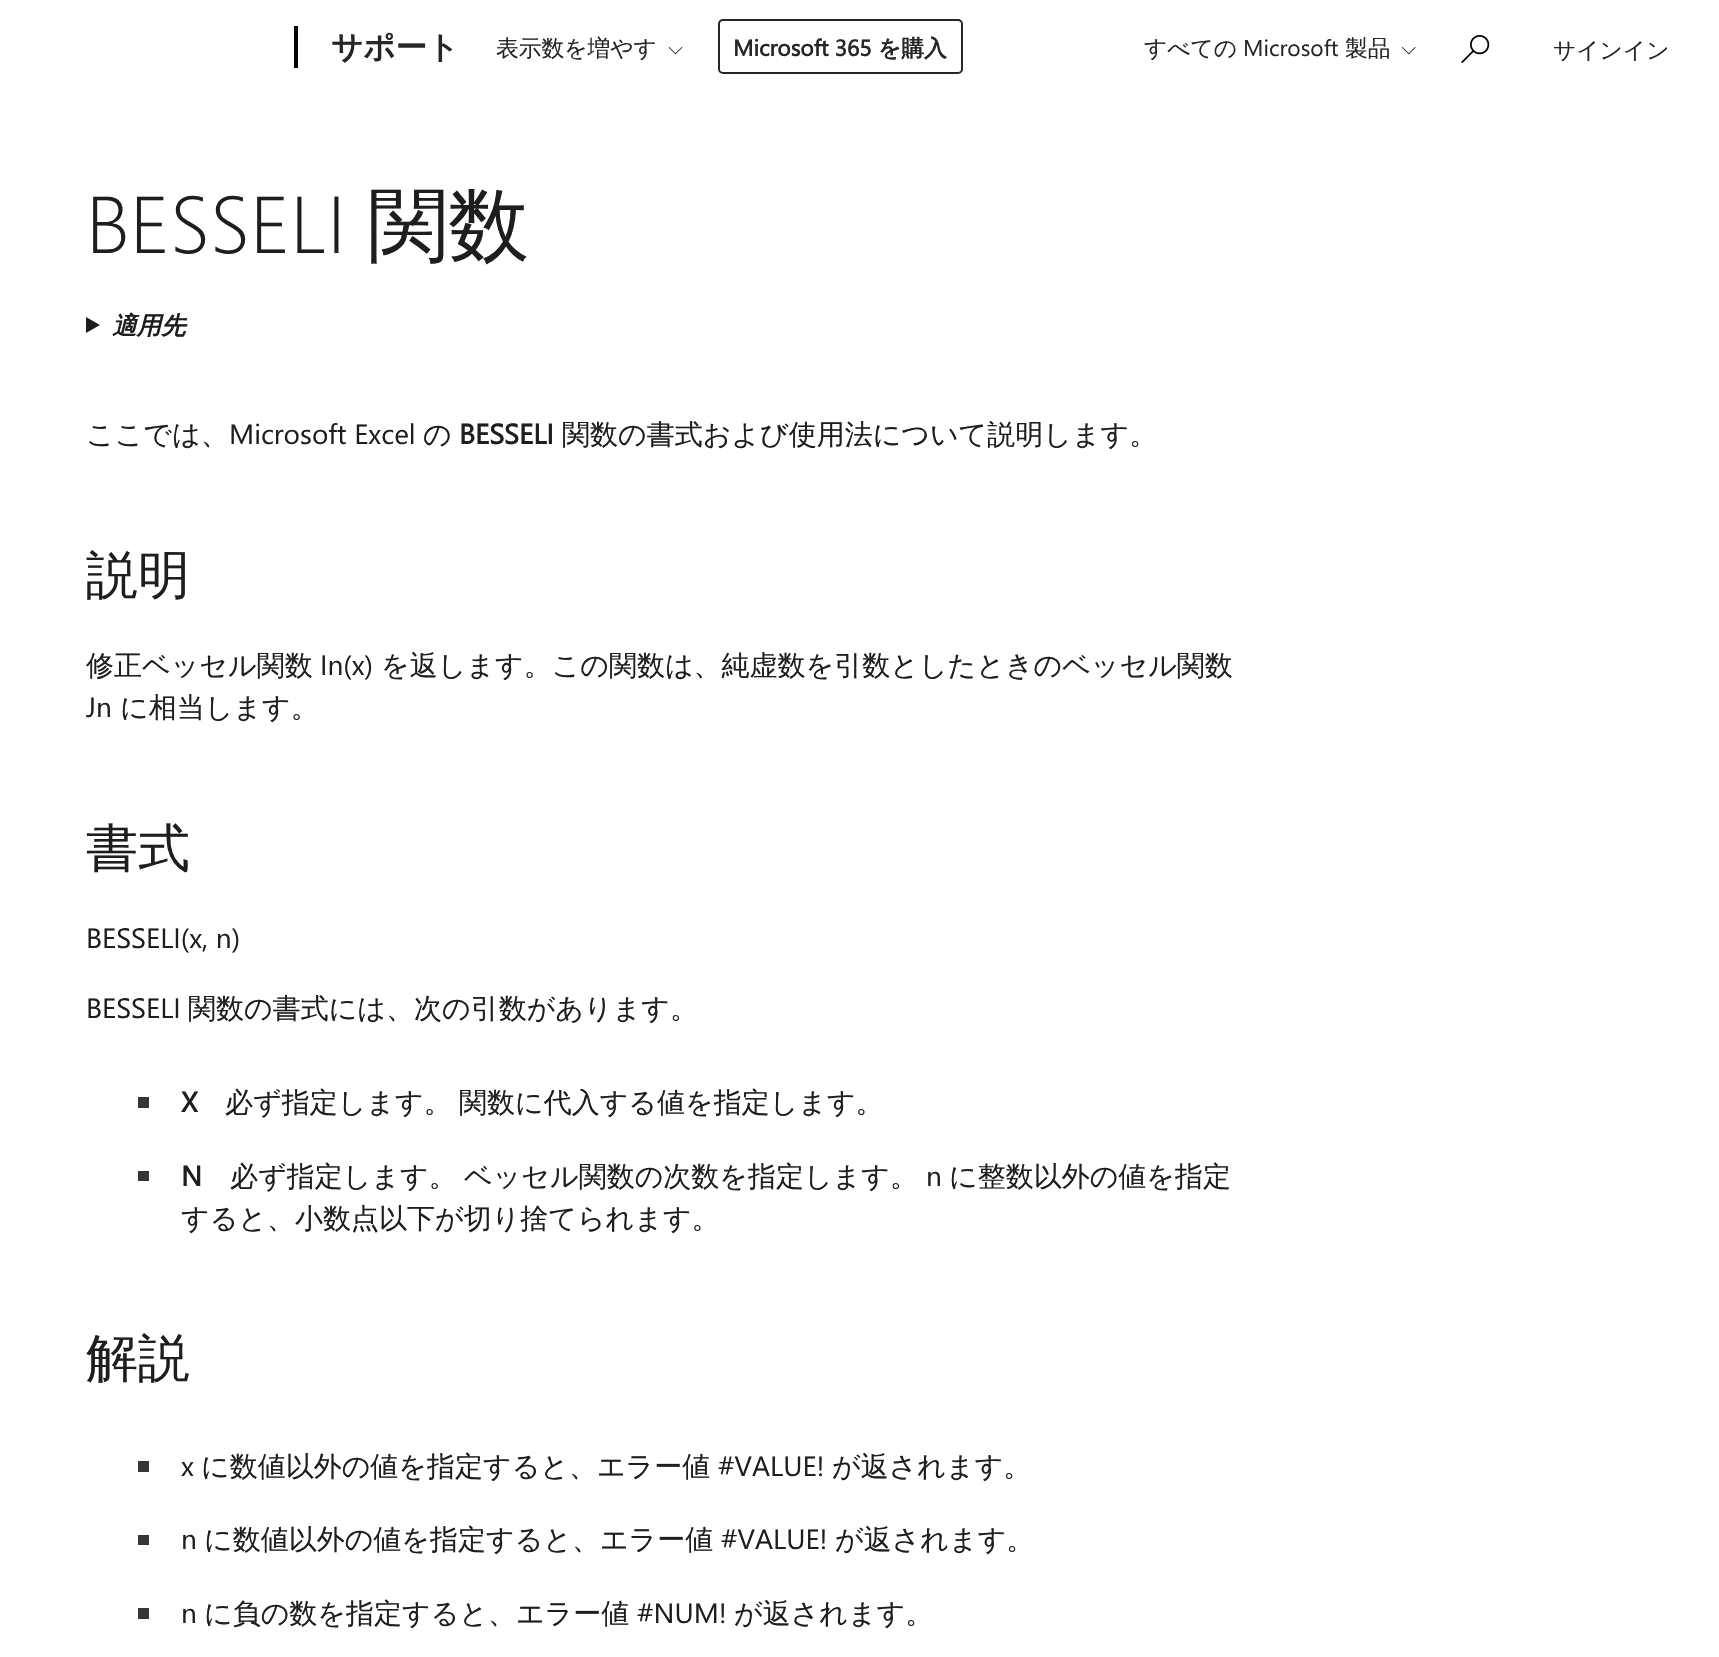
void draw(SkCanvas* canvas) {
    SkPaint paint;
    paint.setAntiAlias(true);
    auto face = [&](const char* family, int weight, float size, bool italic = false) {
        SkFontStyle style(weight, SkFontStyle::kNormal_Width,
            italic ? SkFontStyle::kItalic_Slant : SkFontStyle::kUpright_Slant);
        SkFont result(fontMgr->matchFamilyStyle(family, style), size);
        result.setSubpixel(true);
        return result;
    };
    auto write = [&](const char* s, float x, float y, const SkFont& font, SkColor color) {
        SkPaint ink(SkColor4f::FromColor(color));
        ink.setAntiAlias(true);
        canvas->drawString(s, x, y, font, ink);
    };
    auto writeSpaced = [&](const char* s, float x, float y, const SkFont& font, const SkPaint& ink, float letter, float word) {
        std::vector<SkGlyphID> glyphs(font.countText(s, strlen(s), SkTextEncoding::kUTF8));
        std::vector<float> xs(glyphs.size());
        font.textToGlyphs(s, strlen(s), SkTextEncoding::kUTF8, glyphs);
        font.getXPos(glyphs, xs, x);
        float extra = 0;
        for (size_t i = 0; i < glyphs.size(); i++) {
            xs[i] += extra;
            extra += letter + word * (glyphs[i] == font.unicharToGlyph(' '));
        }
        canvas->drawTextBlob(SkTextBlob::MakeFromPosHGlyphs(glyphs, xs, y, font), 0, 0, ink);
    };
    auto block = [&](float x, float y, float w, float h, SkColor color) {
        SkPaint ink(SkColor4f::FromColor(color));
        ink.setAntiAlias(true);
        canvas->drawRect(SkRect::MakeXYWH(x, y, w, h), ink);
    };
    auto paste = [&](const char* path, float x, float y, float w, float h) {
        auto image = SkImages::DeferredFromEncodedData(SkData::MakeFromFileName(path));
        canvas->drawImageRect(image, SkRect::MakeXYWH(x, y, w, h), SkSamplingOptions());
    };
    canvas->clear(SK_ColorWHITE);
    block(294, 26, 4, 42, SK_ColorBLACK);
    auto kFont1 = face("WenQuanYi Zen Hei", 700, 31.5f);
    write("サポート", 331, 58, kFont1, SkColorSetRGB(38, 38, 38));
    auto kFont2 = face("WenQuanYi Zen Hei", 500, 22.75f);
    write("表示数を増やす", 496, 56, kFont2, SkColorSetRGB(38, 38, 38));
    paste("pic1.png", 668, 47, 15, 8);
    paint.setStyle(SkPaint::kStroke_Style);
    paint.setStrokeWidth(2);
    paint.setColor(SkColorSetRGB(38, 38, 38));
    canvas->drawRoundRect(SkRect::MakeXYWH(719, 20, 243, 53), 4, 4, paint);
    auto kFont3 = face("Segoe UI", 700, 22.75f);
    write("Microsoft 365", 733, 56, kFont3, SkColorSetRGB(38, 38, 38));
    auto kFont4 = face("WenQuanYi Zen Hei", 700, 22.75f);
    write("を購入", 878, 56, kFont4, SkColorSetRGB(38, 38, 38));
    write("すべての", 1144, 56, kFont2, SkColorSetRGB(38, 38, 38));
    auto kFont5 = face("Segoe UI", 400, 22.75f);
    write("Microsoft", 1243, 56, kFont5, SkColorSetRGB(38, 38, 38));
    write("製品", 1345, 56, kFont2, SkColorSetRGB(38, 38, 38));
    paste("pic2.png", 1402, 47, 14, 8);
    paste("pic3.png", 1461, 35, 29, 28);
    write("サインイン", 1553, 58, kFont2, SkColorSetRGB(38, 38, 38));
    auto kFont6 = face("Segoe UI", 300, 80.5f);
    write("BESSELI", 86, 253, kFont6, SkColorSetRGB(30, 30, 30));
    auto kFont7 = face("WenQuanYi Zen Hei", 500, 80.5f);
    write("関数", 368, 253, kFont7, SkColorSetRGB(30, 30, 30));
    paint.setStyle(SkPaint::kFill_Style);
    paint.setColor(SkColorSetRGB(30, 30, 30));
    canvas->drawPath(SkPathBuilder().moveTo(86, 317).lineTo(100, 325).lineTo(86, 333).close().detach(), paint);
    auto kFont8 = face("WenQuanYi Zen Hei", 700, 24.5f, true);
    write("適用先", 112, 334, kFont8, SkColorSetRGB(30, 30, 30));
    auto kFont9 = face("WenQuanYi Zen Hei", 500, 28);
    write("ここでは、", 86, 444, kFont9, SkColorSetRGB(30, 30, 30));
    auto kFont10 = face("Segoe UI", 400, 28);
    write("Microsoft Excel", 229, 444, kFont10, SkColorSetRGB(30, 30, 30));
    write("の", 423, 444, kFont9, SkColorSetRGB(30, 30, 30));
    auto kFont11 = face("Segoe UI", 700, 28);
    write("BESSELI", 459, 444, kFont11, SkColorSetRGB(30, 30, 30));
    write("関数の書式および使用法について説明します。", 562, 444, kFont9, SkColorSetRGB(30, 30, 30));
    auto kFont12 = face("WenQuanYi Zen Hei", 500, 52);
    write("説明", 86, 593, kFont12, SkColorSetRGB(30, 30, 30));
    write("修正ベッセル関数", 86, 675, kFont9, SkColorSetRGB(30, 30, 30));
    write("In(x)", 320, 675, kFont10, SkColorSetRGB(30, 30, 30));
    write("を返します。この関数は、純虚数を引数としたときのベッセル関数", 381, 675, kFont9, SkColorSetRGB(30, 30, 30));
    write("Jn", 86, 717, kFont10, SkColorSetRGB(30, 30, 30));
    write("に相当します。", 120, 717, kFont9, SkColorSetRGB(30, 30, 30));
    write("書式", 86, 866, kFont12, SkColorSetRGB(30, 30, 30));
    write("BESSELI(x, n)", 86, 948, kFont10, SkColorSetRGB(30, 30, 30));
    write("BESSELI", 86, 1018, kFont10, SkColorSetRGB(30, 30, 30));
    write("関数の書式には、次の引数があります。", 188, 1018, kFont9, SkColorSetRGB(30, 30, 30));
    block(138, 1097, 11, 11, SkColorSetRGB(54, 54, 54));
    write("X", 181, 1112, kFont11, SkColorSetRGB(30, 30, 30));
    writeSpaced("必ず指定します。 関数に代入する値を指定します。", 225, 1112, kFont9, paint, 0, -1);
    block(138, 1171, 11, 10, SkColorSetRGB(54, 54, 54));
    write("N", 181, 1186, kFont11, SkColorSetRGB(30, 30, 30));
    writeSpaced("必ず指定します。 ベッセル関数の次数を指定します。", 230, 1186, kFont9, paint, 0, -1);
    write("n", 926, 1186, kFont10, SkColorSetRGB(30, 30, 30));
    write("に整数以外の値を指定", 949, 1186, kFont9, SkColorSetRGB(30, 30, 30));
    write("すると、小数点以下が切り捨てられます。", 181, 1228, kFont9, SkColorSetRGB(30, 30, 30));
    write("解説", 86, 1376, kFont12, SkColorSetRGB(30, 30, 30));
    block(138, 1461, 11, 11, SkColorSetRGB(54, 54, 54));
    write("x", 181, 1476, kFont10, SkColorSetRGB(30, 30, 30));
    write("に数値以外の値を指定すると、エラー値", 201, 1476, kFont9, SkColorSetRGB(30, 30, 30));
    write("#VALUE!", 718, 1476, kFont10, SkColorSetRGB(30, 30, 30));
    write("が返されます。", 832, 1476, kFont9, SkColorSetRGB(30, 30, 30));
    block(138, 1535, 11, 10, SkColorSetRGB(54, 54, 54));
    write("n", 181, 1549, kFont10, SkColorSetRGB(30, 30, 30));
    write("に数値以外の値を指定すると、エラー値", 204, 1549, kFont9, SkColorSetRGB(30, 30, 30));
    write("#VALUE!", 721, 1549, kFont10, SkColorSetRGB(30, 30, 30));
    write("が返されます。", 835, 1549, kFont9, SkColorSetRGB(30, 30, 30));
    block(138, 1608, 11, 11, SkColorSetRGB(54, 54, 54));
    write("n", 181, 1623, kFont10, SkColorSetRGB(30, 30, 30));
    write("に負の数を指定すると、エラー値", 204, 1623, kFont9, SkColorSetRGB(30, 30, 30));
    write("#NUM!", 637, 1623, kFont10, SkColorSetRGB(30, 30, 30));
    write("が返されます。", 734, 1623, kFont9, SkColorSetRGB(30, 30, 30));
}
